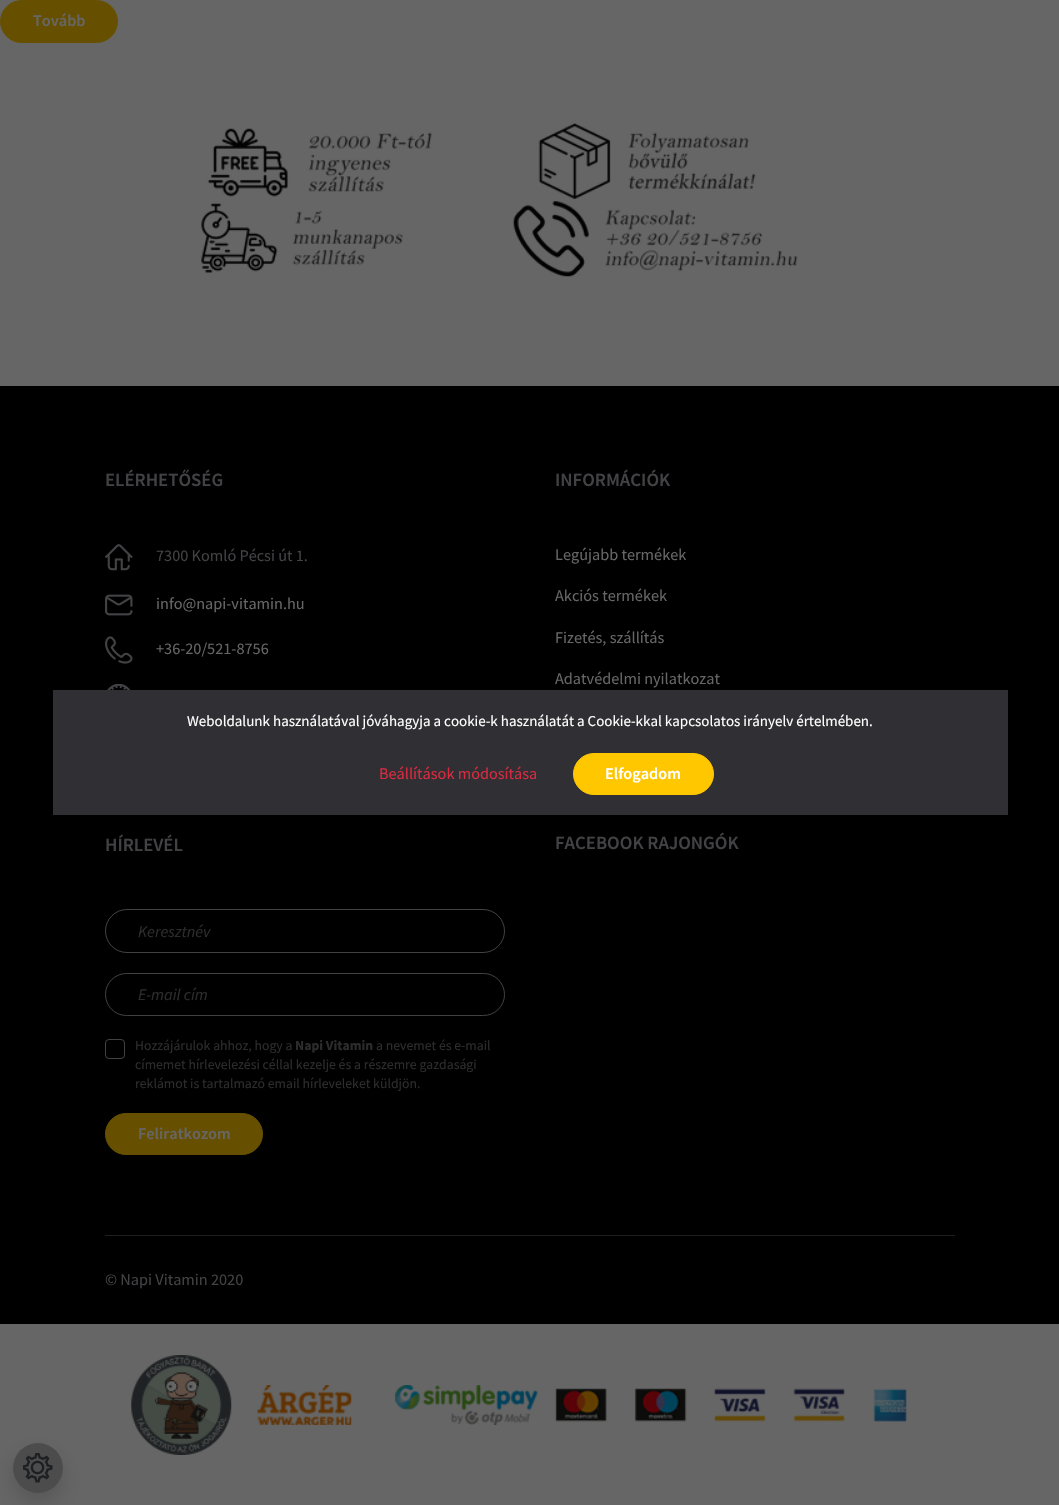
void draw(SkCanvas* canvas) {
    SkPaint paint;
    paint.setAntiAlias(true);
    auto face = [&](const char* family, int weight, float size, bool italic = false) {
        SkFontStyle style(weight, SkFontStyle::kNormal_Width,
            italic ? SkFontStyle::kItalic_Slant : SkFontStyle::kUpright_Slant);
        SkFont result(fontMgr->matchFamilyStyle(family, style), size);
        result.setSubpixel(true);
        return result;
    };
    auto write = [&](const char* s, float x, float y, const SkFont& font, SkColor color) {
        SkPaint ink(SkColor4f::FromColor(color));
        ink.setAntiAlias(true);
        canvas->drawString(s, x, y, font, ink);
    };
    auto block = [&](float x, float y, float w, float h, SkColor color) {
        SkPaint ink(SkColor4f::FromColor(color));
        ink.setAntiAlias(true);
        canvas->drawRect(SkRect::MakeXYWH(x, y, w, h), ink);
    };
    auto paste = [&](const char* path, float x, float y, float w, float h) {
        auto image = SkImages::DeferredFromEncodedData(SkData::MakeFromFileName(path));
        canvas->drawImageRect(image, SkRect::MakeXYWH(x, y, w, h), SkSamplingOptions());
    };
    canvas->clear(SkColorSetRGB(102, 102, 102));
    paint.setColor(SkColorSetRGB(102, 80, 0));
    canvas->drawRoundRect(SkRect::MakeXYWH(0.5f, 0.5f, 117, 42), 21, 21, paint);
    paint.setStyle(SkPaint::kStroke_Style);
    paint.setStrokeWidth(1);
    canvas->drawRoundRect(SkRect::MakeXYWH(0.5f, 0.5f, 117, 42), 21, 21, paint);
    auto kFont1 = face("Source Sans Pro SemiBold", 600, 16.25f);
    write("Tovább", 33, 26, kFont1, SkColorSetRGB(102, 102, 102));
    paste("pic1.png", 207, 128, 225, 69);
    paste("pic2.png", 538, 123, 218, 76);
    paste("pic3.png", 201, 203, 202, 70);
    paste("pic4.png", 512, 201, 286, 76);
    block(0, 386, 1059, 938, SK_ColorBLACK);
    auto kFont2 = face("Source Sans Pro SemiBold", 600, 18.75f);
    write("ELÉRHETŐSÉG", 105, 486, kFont2, SkColorSetRGB(66, 66, 69));
    paste("pic5.png", 105, 544, 28, 27);
    auto kFont3 = face("Source Sans Pro", 400, 16.25f);
    write("7300 Komló Pécsi út 1.", 156, 561, kFont3, SkColorSetRGB(66, 66, 69));
    paste("pic6.png", 105, 594, 28, 22);
    write("info@napi-vitamin.hu", 156, 609, kFont3, SkColorSetRGB(102, 102, 102));
    paste("pic7.png", 105, 636, 28, 28);
    write("+36-20/521-8756", 156, 654, kFont3, SkColorSetRGB(102, 102, 102));
    paste("pic8.png", 107, 684, 24, 6);
    write("INFORMÁCIÓK", 555, 486, kFont2, SkColorSetRGB(66, 66, 69));
    write("Legújabb termékek", 555, 560, kFont3, SkColorSetRGB(102, 102, 102));
    write("Akciós termékek", 555, 601, kFont3, SkColorSetRGB(102, 102, 102));
    write("Fizetés, szállítás", 555, 643, kFont3, SkColorSetRGB(102, 102, 102));
    write("Adatvédelmi nyilatkozat", 555, 684, kFont3, SkColorSetRGB(102, 102, 102));
    write("HÍRLEVÉL", 105, 851, kFont2, SkColorSetRGB(66, 66, 69));
    paint.setColor(SkColorSetRGB(66, 66, 69));
    canvas->drawRoundRect(SkRect::MakeXYWH(105.5f, 909.5f, 399, 43), 21.5f, 21.5f, paint);
    auto kFont4 = face("Source Sans Pro", 400, 16.25f, true);
    write("Keresztnév", 138, 937, kFont4, SkColorSetRGB(44, 44, 44));
    canvas->drawRoundRect(SkRect::MakeXYWH(105.5f, 973.5f, 399, 42), 21, 21, paint);
    write("E-mail cím", 138, 1000, kFont4, SkColorSetRGB(44, 44, 44));
    canvas->drawRoundRect(SkRect::MakeXYWH(105.5f, 1039.5f, 19, 19), 3.5f, 3.5f, paint);
    auto kFont5 = face("Source Sans Pro", 400, 13.75f);
    write("Hozzájárulok ahhoz, hogy a", 135, 1050, kFont5, SkColorSetRGB(44, 44, 44));
    auto kFont6 = face("Source Sans Pro", 700, 13.75f);
    write("Napi Vitamin", 295, 1050, kFont6, SkColorSetRGB(44, 44, 44));
    write("a nevemet és e-mail", 376, 1050, kFont5, SkColorSetRGB(44, 44, 44));
    write("címemet hírlevelezési céllal kezelje és a részemre gazdasági", 135, 1069, kFont5, SkColorSetRGB(44, 44, 44));
    write("reklámot is tartalmazó email hírleveleket küldjön.", 135, 1088, kFont5, SkColorSetRGB(44, 44, 44));
    paint.setStyle(SkPaint::kFill_Style);
    paint.setColor(SkColorSetRGB(102, 80, 0));
    canvas->drawRoundRect(SkRect::MakeXYWH(105.5f, 1113.5f, 157, 41), 20.5f, 20.5f, paint);
    paint.setStyle(SkPaint::kStroke_Style);
    canvas->drawRoundRect(SkRect::MakeXYWH(105.5f, 1113.5f, 157, 41), 20.5f, 20.5f, paint);
    write("Feliratkozom", 138, 1139, kFont1, SkColorSetRGB(102, 102, 102));
    write("FACEBOOK RAJONGÓK", 555, 849, kFont2, SkColorSetRGB(66, 66, 69));
    block(105, 1235, 850, 1, SkColorSetRGB(29, 32, 35));
    write("© Napi Vitamin 2020", 105, 1285, kFont3, SkColorSetRGB(66, 66, 69));
    paste("pic9.png", 131, 1355, 101, 100);
    paste("pic10.png", 257, 1385, 95, 40);
    paste("pic11.png", 394, 1385, 513, 40);
    block(53, 690, 955, 125, SkColorSetRGB(48, 47, 52));
    auto kFont7 = face("Source Sans Pro", 400, 15);
    write("Weboldalunk használatával jóváhagyja a cookie-k használatát a Cookie-kkal kapcsolatos irányelv értelmében.", 187, 726, kFont7, SK_ColorWHITE);
    write("Beállítások módosítása", 379, 779, kFont3, SkColorSetRGB(216, 43, 63));
    paint.setStyle(SkPaint::kFill_Style);
    paint.setColor(SkColorSetRGB(255, 199, 0));
    canvas->drawRoundRect(SkRect::MakeXYWH(573.5f, 753.5f, 140, 41), 20.5f, 20.5f, paint);
    paint.setStyle(SkPaint::kStroke_Style);
    canvas->drawRoundRect(SkRect::MakeXYWH(573.5f, 753.5f, 140, 41), 20.5f, 20.5f, paint);
    write("Elfogadom", 605, 779, kFont1, SK_ColorWHITE);
    paint.setStyle(SkPaint::kFill_Style);
    paint.setColor(SkColorSetARGB(38, 0, 0, 0));
    paint.setMaskFilter(SkMaskFilter::MakeBlur(kNormal_SkBlurStyle, 10));
    canvas->drawRoundRect(SkRect::MakeXYWH(13, 1453, 50, 50), 25, 25, paint);
    paint.setMaskFilter(nullptr);
    paint.setColor(SkColorSetRGB(76, 76, 76));
    canvas->drawCircle(38, 1468, 25, paint);
    paste("pic12.png", 23, 1453, 30, 30);
}
